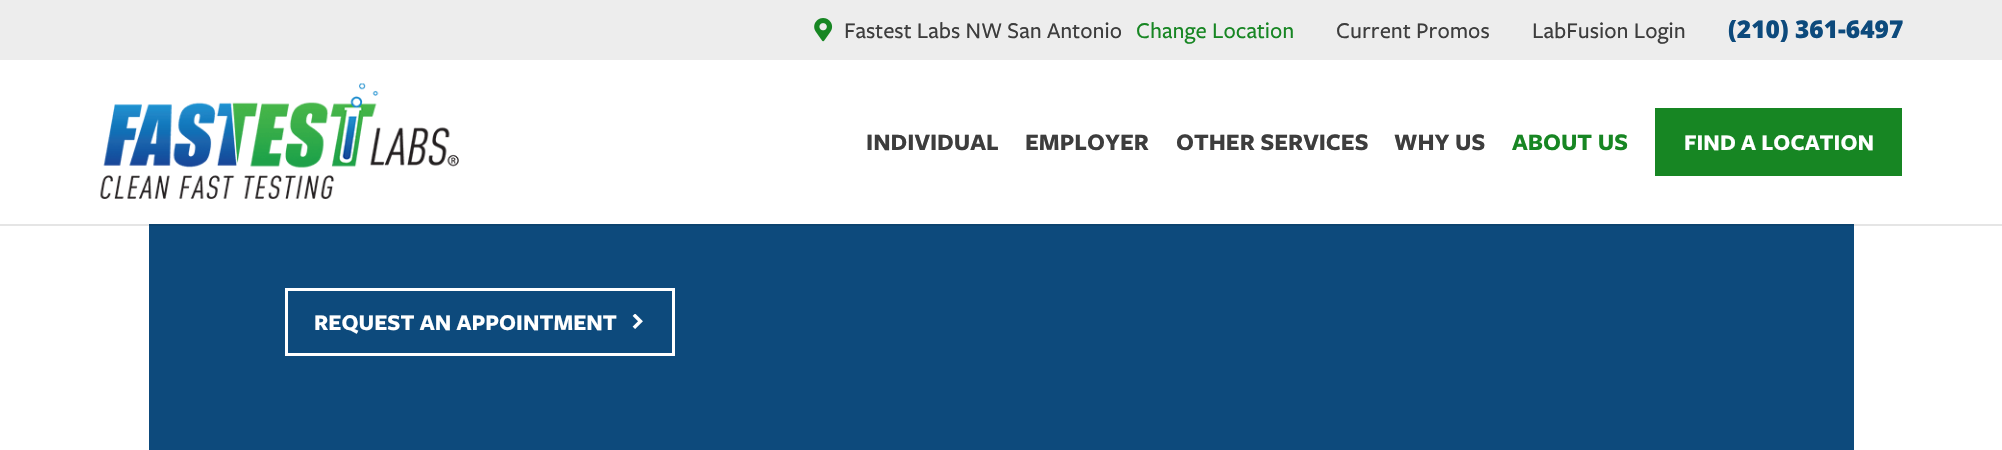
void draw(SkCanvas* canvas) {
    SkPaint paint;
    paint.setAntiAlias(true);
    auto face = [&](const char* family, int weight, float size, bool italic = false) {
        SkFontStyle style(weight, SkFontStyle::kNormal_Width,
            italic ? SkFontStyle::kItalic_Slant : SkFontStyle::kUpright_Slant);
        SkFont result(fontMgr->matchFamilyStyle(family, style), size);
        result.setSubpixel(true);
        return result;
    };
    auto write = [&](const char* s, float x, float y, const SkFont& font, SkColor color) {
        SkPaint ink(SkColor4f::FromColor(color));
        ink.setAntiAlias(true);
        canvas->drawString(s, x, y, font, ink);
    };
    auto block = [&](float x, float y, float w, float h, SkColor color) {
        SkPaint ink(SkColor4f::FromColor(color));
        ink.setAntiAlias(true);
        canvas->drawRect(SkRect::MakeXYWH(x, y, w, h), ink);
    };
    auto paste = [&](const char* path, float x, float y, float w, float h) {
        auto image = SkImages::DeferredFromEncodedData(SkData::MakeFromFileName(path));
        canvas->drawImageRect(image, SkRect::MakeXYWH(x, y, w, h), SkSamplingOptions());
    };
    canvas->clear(SK_ColorWHITE);
    block(149, 224, 1705, 226, SkColorSetRGB(13, 74, 124));
    block(0, 224, 2002, 2, SkColorSetARGB(26, 0, 0, 0));
    block(0, 0, 2002, 60, SkColorSetRGB(237, 237, 237));
    paste("pic1.png", 814, 18, 19, 24);
    auto kFont1 = face("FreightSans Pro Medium", 500, 23.25f);
    write("Fastest Labs NW San Antonio", 844, 38, kFont1, SkColorSetRGB(61, 61, 61));
    write("Change Location", 1136, 38, kFont1, SkColorSetRGB(23, 134, 35));
    write("Current Promos", 1336, 38, kFont1, SkColorSetRGB(61, 61, 61));
    write("LabFusion Login", 1532, 38, kFont1, SkColorSetRGB(61, 61, 61));
    auto kFont2 = face("Open Sans", 800, 24.5f);
    write("(210) 361-6497", 1728, 38, kFont2, SkColorSetRGB(13, 74, 124));
    paste("pic2.png", 100, 83, 359, 116);
    auto kFont3 = face("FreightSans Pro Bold", 700, 24.5f);
    write("INDIVIDUAL", 866, 150, kFont3, SkColorSetRGB(61, 61, 61));
    write("EMPLOYER", 1025, 150, kFont3, SkColorSetRGB(61, 61, 61));
    write("OTHER SERVICES", 1176, 150, kFont3, SkColorSetRGB(61, 61, 61));
    write("WHY US", 1394, 150, kFont3, SkColorSetRGB(61, 61, 61));
    write("ABOUT US", 1512, 150, kFont3, SkColorSetRGB(23, 134, 35));
    block(1655, 108, 247, 68, SkColorSetRGB(23, 134, 35));
    auto kFont4 = face("FreightSans Pro Bold", 700, 23.25f);
    write("FIND A LOCATION", 1684, 150, kFont4, SK_ColorWHITE);
    paint.setStyle(SkPaint::kStroke_Style);
    paint.setStrokeWidth(3);
    paint.setColor(SK_ColorWHITE);
    canvas->drawRect(SkRect::MakeXYWH(286.5f, 289.5f, 387, 65), paint);
    write("REQUEST AN APPOINTMENT", 314, 330, kFont4, SK_ColorWHITE);
    paste("pic3.png", 632, 314, 11, 15);
}
